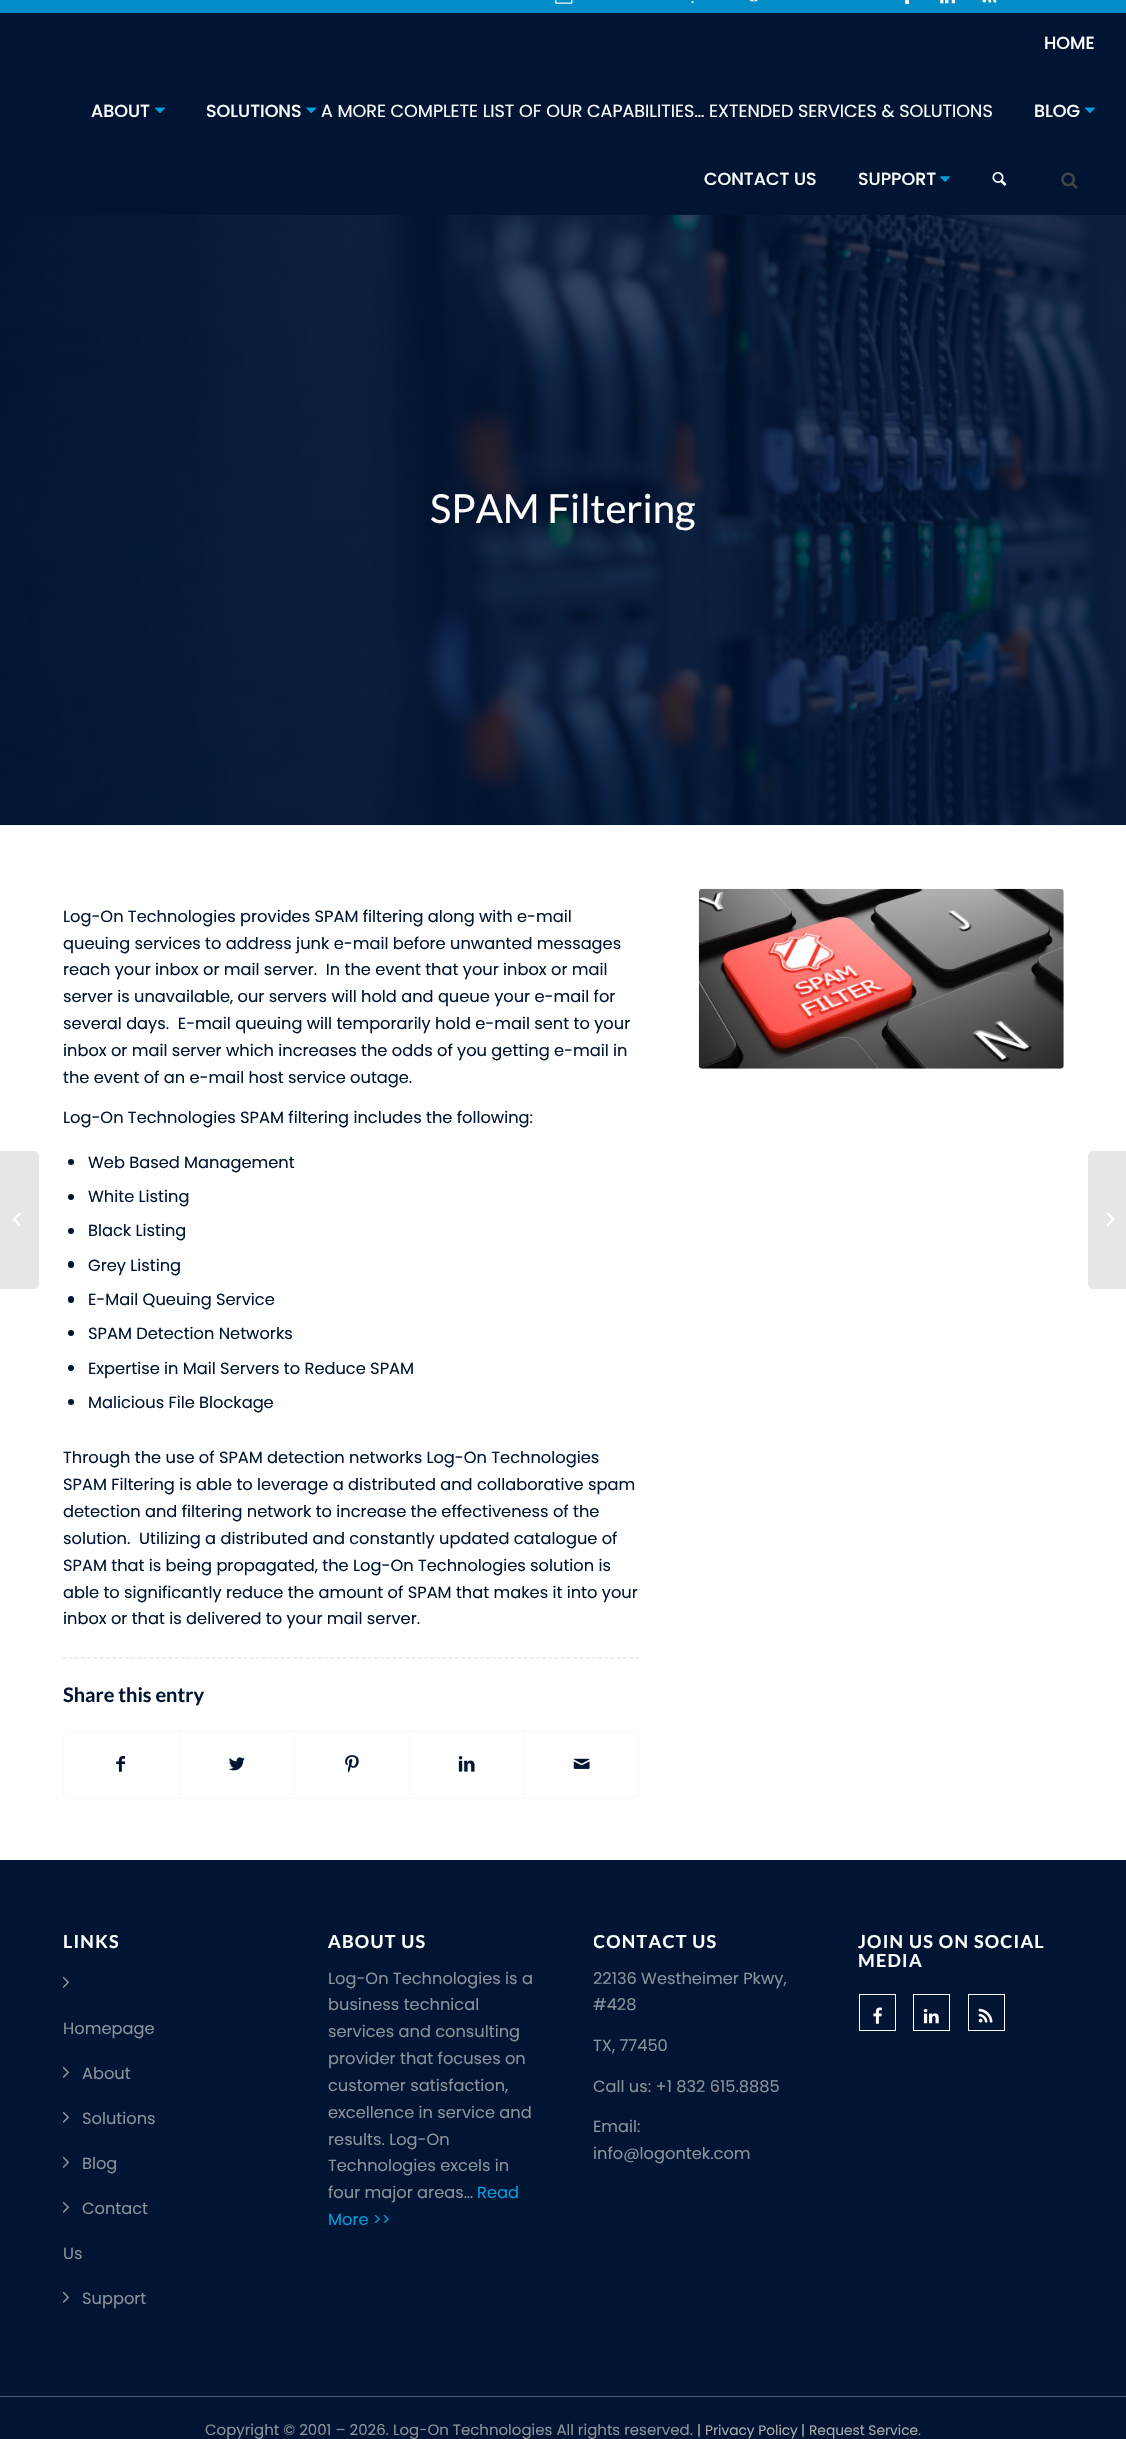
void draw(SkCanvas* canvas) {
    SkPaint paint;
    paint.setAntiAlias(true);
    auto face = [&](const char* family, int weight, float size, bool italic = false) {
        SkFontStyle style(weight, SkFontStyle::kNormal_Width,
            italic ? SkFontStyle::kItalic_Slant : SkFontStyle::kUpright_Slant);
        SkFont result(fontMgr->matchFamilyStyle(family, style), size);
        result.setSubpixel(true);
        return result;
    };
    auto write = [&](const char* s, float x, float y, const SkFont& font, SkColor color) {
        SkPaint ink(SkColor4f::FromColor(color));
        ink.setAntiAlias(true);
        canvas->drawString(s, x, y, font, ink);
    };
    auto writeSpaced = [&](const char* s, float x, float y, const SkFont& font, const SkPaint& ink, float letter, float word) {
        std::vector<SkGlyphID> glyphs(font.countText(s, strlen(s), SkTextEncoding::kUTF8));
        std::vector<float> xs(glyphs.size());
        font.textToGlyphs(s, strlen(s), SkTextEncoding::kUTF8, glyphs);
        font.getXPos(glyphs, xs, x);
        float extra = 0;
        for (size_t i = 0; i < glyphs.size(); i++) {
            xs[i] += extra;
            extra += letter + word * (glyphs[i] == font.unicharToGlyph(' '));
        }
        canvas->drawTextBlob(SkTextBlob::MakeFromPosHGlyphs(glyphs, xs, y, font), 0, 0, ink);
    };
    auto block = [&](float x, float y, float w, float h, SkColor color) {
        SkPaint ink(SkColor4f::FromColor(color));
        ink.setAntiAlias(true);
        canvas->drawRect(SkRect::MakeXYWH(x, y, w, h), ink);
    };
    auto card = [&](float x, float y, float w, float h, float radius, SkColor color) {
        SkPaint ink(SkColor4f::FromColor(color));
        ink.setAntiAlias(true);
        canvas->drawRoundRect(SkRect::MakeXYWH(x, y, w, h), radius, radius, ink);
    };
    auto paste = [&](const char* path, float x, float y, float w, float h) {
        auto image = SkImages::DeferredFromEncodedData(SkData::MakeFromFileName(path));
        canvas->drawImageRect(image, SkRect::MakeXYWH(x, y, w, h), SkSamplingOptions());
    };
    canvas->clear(SK_ColorWHITE);
    block(0, 0, 1126, 13, SkColorSetRGB(2, 141, 201));
    paste("pic1.png", 555, 0, 18, 4);
    auto kFont1 = face("Poppins", 400, 15);
    write(".", 691, 3, kFont1, SK_ColorWHITE);
    paste("pic2.png", 750, 0, 8, 2);
    block(905, 0, 4, 4, SK_ColorWHITE);
    paste("pic3.png", 940, 0, 15, 4);
    paste("pic4.png", 982, 0, 15, 3);
    block(0, 13, 1126, 202, SkColorSetRGB(0, 20, 51));
    auto kFont2 = face("Poppins", 500, 17.5f);
    write("HOME", 1044, 49, kFont2, SK_ColorWHITE);
    write("ABOUT", 91, 117, kFont2, SK_ColorWHITE);
    paste("pic5.png", 155, 107, 10, 6);
    write("SOLUTIONS", 206, 117, kFont2, SK_ColorWHITE);
    paste("pic6.png", 306, 107, 11, 7);
    auto kFont3 = face("Poppins", 400, 17.5f);
    write("A MORE COMPLETE LIST OF OUR CAPABILITIES… EXTENDED SERVICES & SOLUTIONS", 321, 117, kFont3, SK_ColorWHITE);
    write("BLOG", 1034, 117, kFont2, SK_ColorWHITE);
    paste("pic5.png", 1085, 107, 10, 6);
    write("CONTACT US", 704, 185, kFont2, SK_ColorWHITE);
    write("SUPPORT", 858, 185, kFont2, SK_ColorWHITE);
    paste("pic7.png", 940, 176, 10, 6);
    paste("pic8.png", 992, 171, 15, 15);
    paste("pic9.png", 1061, 172, 17, 17);
    paint.setColor(SkColorSetRGB(230, 230, 230));
    canvas->drawPath(SkPathBuilder().moveTo(0, 1151).lineTo(34, 1151).cubicTo(37, 1151, 39, 1153, 39, 1156).lineTo(39, 1284).cubicTo(39, 1287, 37, 1289, 34, 1289).lineTo(0, 1289).close().detach(), paint);
    paste("pic10.png", 13, 1212, 8, 15);
    paste("pic11.png", 0, 215, 1126, 610);
    auto kFont4 = face("Lato", 400, 40);
    write("SPAM Filtering", 430, 523, kFont4, SK_ColorWHITE);
    block(0, 825, 1126, 1, SkColorSetRGB(248, 248, 248));
    auto kFont5 = face("Poppins", 400, 16.25f);
    write("Log-On Technologies provides SPAM filtering along with e-mail", 63, 922, kFont5, SkColorSetRGB(0, 20, 51));
    write("queuing services to address junk e-mail before unwanted messages", 63, 949, kFont5, SkColorSetRGB(0, 20, 51));
    write("reach your inbox or mail server.  In the event that your inbox or mail", 63, 975, kFont5, SkColorSetRGB(0, 20, 51));
    write("server is unavailable, our servers will hold and queue your e-mail for", 63, 1002, kFont5, SkColorSetRGB(0, 20, 51));
    write("several days.  E-mail queuing will temporarily hold e-mail sent to your", 63, 1029, kFont5, SkColorSetRGB(0, 20, 51));
    write("inbox or mail server which increases the odds of you getting e-mail in", 63, 1056, kFont5, SkColorSetRGB(0, 20, 51));
    write("the event of an e-mail host service outage.", 63, 1083, kFont5, SkColorSetRGB(0, 20, 51));
    write("Log-On Technologies SPAM filtering includes the following:", 63, 1123, kFont5, SkColorSetRGB(0, 20, 51));
    paint.setColor(SkColorSetRGB(0, 20, 51));
    canvas->drawCircle(71, 1162, 3, paint);
    write("Web Based Management", 88, 1168, kFont5, SkColorSetRGB(0, 20, 51));
    canvas->drawCircle(71, 1197, 3, paint);
    write("White Listing", 88, 1202, kFont5, SkColorSetRGB(0, 20, 51));
    canvas->drawCircle(71, 1231, 3, paint);
    write("Black Listing", 88, 1236, kFont5, SkColorSetRGB(0, 20, 51));
    card(68, 1261, 6, 7, 3, SkColorSetRGB(0, 20, 51));
    write("Grey Listing", 88, 1271, kFont5, SkColorSetRGB(0, 20, 51));
    card(68, 1296, 6, 7, 3, SkColorSetRGB(0, 20, 51));
    write("E-Mail Queuing Service", 88, 1305, kFont5, SkColorSetRGB(0, 20, 51));
    canvas->drawCircle(71, 1333, 3, paint);
    write("SPAM Detection Networks", 88, 1339, kFont5, SkColorSetRGB(0, 20, 51));
    canvas->drawCircle(71, 1368, 3, paint);
    write("Expertise in Mail Servers to Reduce SPAM", 88, 1374, kFont5, SkColorSetRGB(0, 20, 51));
    canvas->drawCircle(71, 1402, 3, paint);
    write("Malicious File Blockage", 88, 1408, kFont5, SkColorSetRGB(0, 20, 51));
    write("Through the use of SPAM detection networks Log-On Technologies", 63, 1463, kFont5, SkColorSetRGB(0, 20, 51));
    write("SPAM Filtering is able to leverage a distributed and collaborative spam", 63, 1490, kFont5, SkColorSetRGB(0, 20, 51));
    write("detection and filtering network to increase the effectiveness of the", 63, 1517, kFont5, SkColorSetRGB(0, 20, 51));
    write("solution.  Utilizing a distributed and constantly updated catalogue of", 63, 1544, kFont5, SkColorSetRGB(0, 20, 51));
    write("SPAM that is being propagated, the Log-On Technologies solution is", 63, 1571, kFont5, SkColorSetRGB(0, 20, 51));
    write("able to significantly reduce the amount of SPAM that makes it into your", 63, 1598, kFont5, SkColorSetRGB(0, 20, 51));
    write("inbox or that is delivered to your mail server.", 63, 1624, kFont5, SkColorSetRGB(0, 20, 51));
    paint.setStyle(SkPaint::kStroke_Style);
    paint.setStrokeWidth(1.2f);
    paint.setColor(SkColorSetRGB(222, 220, 220));
    paint.setPathEffect(SkDashPathEffect::Make({{3.75f, 2.48f}}, 0));
    canvas->drawPath(SkPathBuilder().moveTo(62.5f, 1658).lineTo(639, 1658).detach(), paint);
    paint.setPathEffect(nullptr);
    auto kFont6 = face("Lato", 700, 20);
    write("Share this entry", 63, 1702, kFont6, SkColorSetRGB(0, 20, 51));
    paint.setStrokeWidth(1);
    paint.setColor(SkColorSetRGB(248, 248, 248));
    canvas->drawRoundRect(SkRect::MakeXYWH(63.5f, 1731.5f, 575, 66), 3.5f, 3.5f, paint);
    paste("pic12.png", 116, 1756, 9, 16);
    block(179, 1733, 1, 63, SkColorSetRGB(248, 248, 248));
    paste("pic13.png", 229, 1757, 16, 14);
    block(294, 1733, 1, 63, SkColorSetRGB(248, 248, 248));
    paste("pic14.png", 345, 1755, 14, 18);
    block(409, 1733, 1, 63, SkColorSetRGB(248, 248, 248));
    paste("pic15.png", 458, 1756, 17, 16);
    block(524, 1733, 1, 63, SkColorSetRGB(248, 248, 248));
    paste("pic16.png", 573, 1758, 17, 11);
    paste("pic17.png", 698, 888, 366, 181);
    block(0, 1860, 1126, 536, SkColorSetRGB(0, 20, 51));
    auto kFont7 = face("Lato", 700, 17.9f);
    paint.setStyle(SkPaint::kFill_Style);
    paint.setColor(SK_ColorWHITE);
    writeSpaced("LINKS", 63, 1948, kFont7, paint, 1.25f, 0);
    paste("pic18.png", 63, 1976, 7, 12);
    write("Homepage", 63, 2034, kFont5, SkColorSetRGB(140, 145, 154));
    paste("pic18.png", 63, 2066, 7, 12);
    write("About", 82, 2079, kFont5, SkColorSetRGB(140, 145, 154));
    paste("pic18.png", 63, 2111, 7, 12);
    write("Solutions", 82, 2124, kFont5, SkColorSetRGB(140, 145, 154));
    paste("pic18.png", 63, 2156, 7, 12);
    write("Blog", 82, 2169, kFont5, SkColorSetRGB(140, 145, 154));
    paste("pic18.png", 63, 2201, 7, 12);
    write("Contact", 82, 2214, kFont5, SkColorSetRGB(140, 145, 154));
    write("Us", 63, 2259, kFont5, SkColorSetRGB(140, 145, 154));
    paste("pic18.png", 63, 2291, 7, 12);
    write("Support", 82, 2304, kFont5, SkColorSetRGB(140, 145, 154));
    writeSpaced("ABOUT US", 328, 1948, kFont7, paint, 1.25f, 0);
    write("Log-On Technologies is a", 328, 1984, kFont5, SkColorSetRGB(140, 145, 154));
    write("business technical", 328, 2010, kFont5, SkColorSetRGB(140, 145, 154));
    write("services and consulting", 328, 2037, kFont5, SkColorSetRGB(140, 145, 154));
    write("provider that focuses on", 328, 2064, kFont5, SkColorSetRGB(140, 145, 154));
    write("customer satisfaction,", 328, 2091, kFont5, SkColorSetRGB(140, 145, 154));
    write("excellence in service and", 328, 2118, kFont5, SkColorSetRGB(140, 145, 154));
    write("results. Log-On", 328, 2145, kFont5, SkColorSetRGB(140, 145, 154));
    write("Technologies excels in", 328, 2171, kFont5, SkColorSetRGB(140, 145, 154));
    write("four major areas…", 328, 2198, kFont5, SkColorSetRGB(140, 145, 154));
    write("Read", 477, 2198, kFont5, SkColorSetRGB(4, 155, 219));
    write("More >>", 328, 2225, kFont5, SkColorSetRGB(4, 155, 219));
    canvas->save();
    canvas->clipRect(SkRect::MakeXYWH(594, 1916, 205, 265));
    writeSpaced("CONTACT US", 593, 1948, kFont7, paint, 1.25f, 0);
    canvas->restore();
    write("22136 Westheimer Pkwy,", 593, 1984, kFont5, SkColorSetRGB(140, 145, 154));
    write("#428", 593, 2010, kFont5, SkColorSetRGB(140, 145, 154));
    write("TX, 77450", 593, 2051, kFont5, SkColorSetRGB(140, 145, 154));
    write("Call us: +1 832 615.8885", 593, 2092, kFont5, SkColorSetRGB(140, 145, 154));
    write("Email:", 593, 2132, kFont5, SkColorSetRGB(140, 145, 154));
    write("info@logontek.com", 593, 2159, kFont5, SkColorSetRGB(140, 145, 154));
    writeSpaced("JOIN US ON SOCIAL", 858, 1948, kFont7, paint, 1.25f, 0);
    writeSpaced("MEDIA", 858, 1967, kFont7, paint, 1.25f, 0);
    paint.setStyle(SkPaint::kStroke_Style);
    canvas->drawRect(SkRect::MakeXYWH(859.5f, 1994.5f, 36, 36), paint);
    paste("pic19.png", 873, 2007, 9, 17);
    canvas->drawRect(SkRect::MakeXYWH(913.5f, 1994.5f, 36, 36), paint);
    paste("pic20.png", 923, 2009, 16, 15);
    canvas->drawRect(SkRect::MakeXYWH(968.5f, 1994.5f, 36, 36), paint);
    paste("pic21.png", 978, 2008, 15, 15);
    block(0, 2397, 1126, 42, SkColorSetRGB(1, 20, 52));
    block(0, 2396, 1126, 1, SkColorSetRGB(77, 91, 113));
    write("Copyright © 2001 – 2026. Log-On Technologies All rights reserved.", 205, 2435, kFont1, SkColorSetRGB(140, 145, 154));
    auto kFont8 = face("Poppins", 400, 13.75f);
    write("|", 697, 2435, kFont8, SkColorSetRGB(176, 176, 176));
    write("Privacy Policy", 705, 2435, kFont8, SkColorSetRGB(170, 170, 170));
    write("|", 801, 2435, kFont8, SkColorSetRGB(176, 176, 176));
    write("Request Service.", 809, 2435, kFont8, SkColorSetRGB(170, 170, 170));
    paint.setStyle(SkPaint::kFill_Style);
    paint.setColor(SkColorSetRGB(230, 230, 230));
    canvas->drawPath(SkPathBuilder().moveTo(1093, 1151).lineTo(1126, 1151).lineTo(1126, 1289).lineTo(1093, 1289).cubicTo(1090, 1289, 1088, 1287, 1088, 1284).lineTo(1088, 1156).cubicTo(1088, 1153, 1090, 1151, 1093, 1151).close().detach(), paint);
    paste("pic22.png", 1106, 1212, 9, 15);
}
